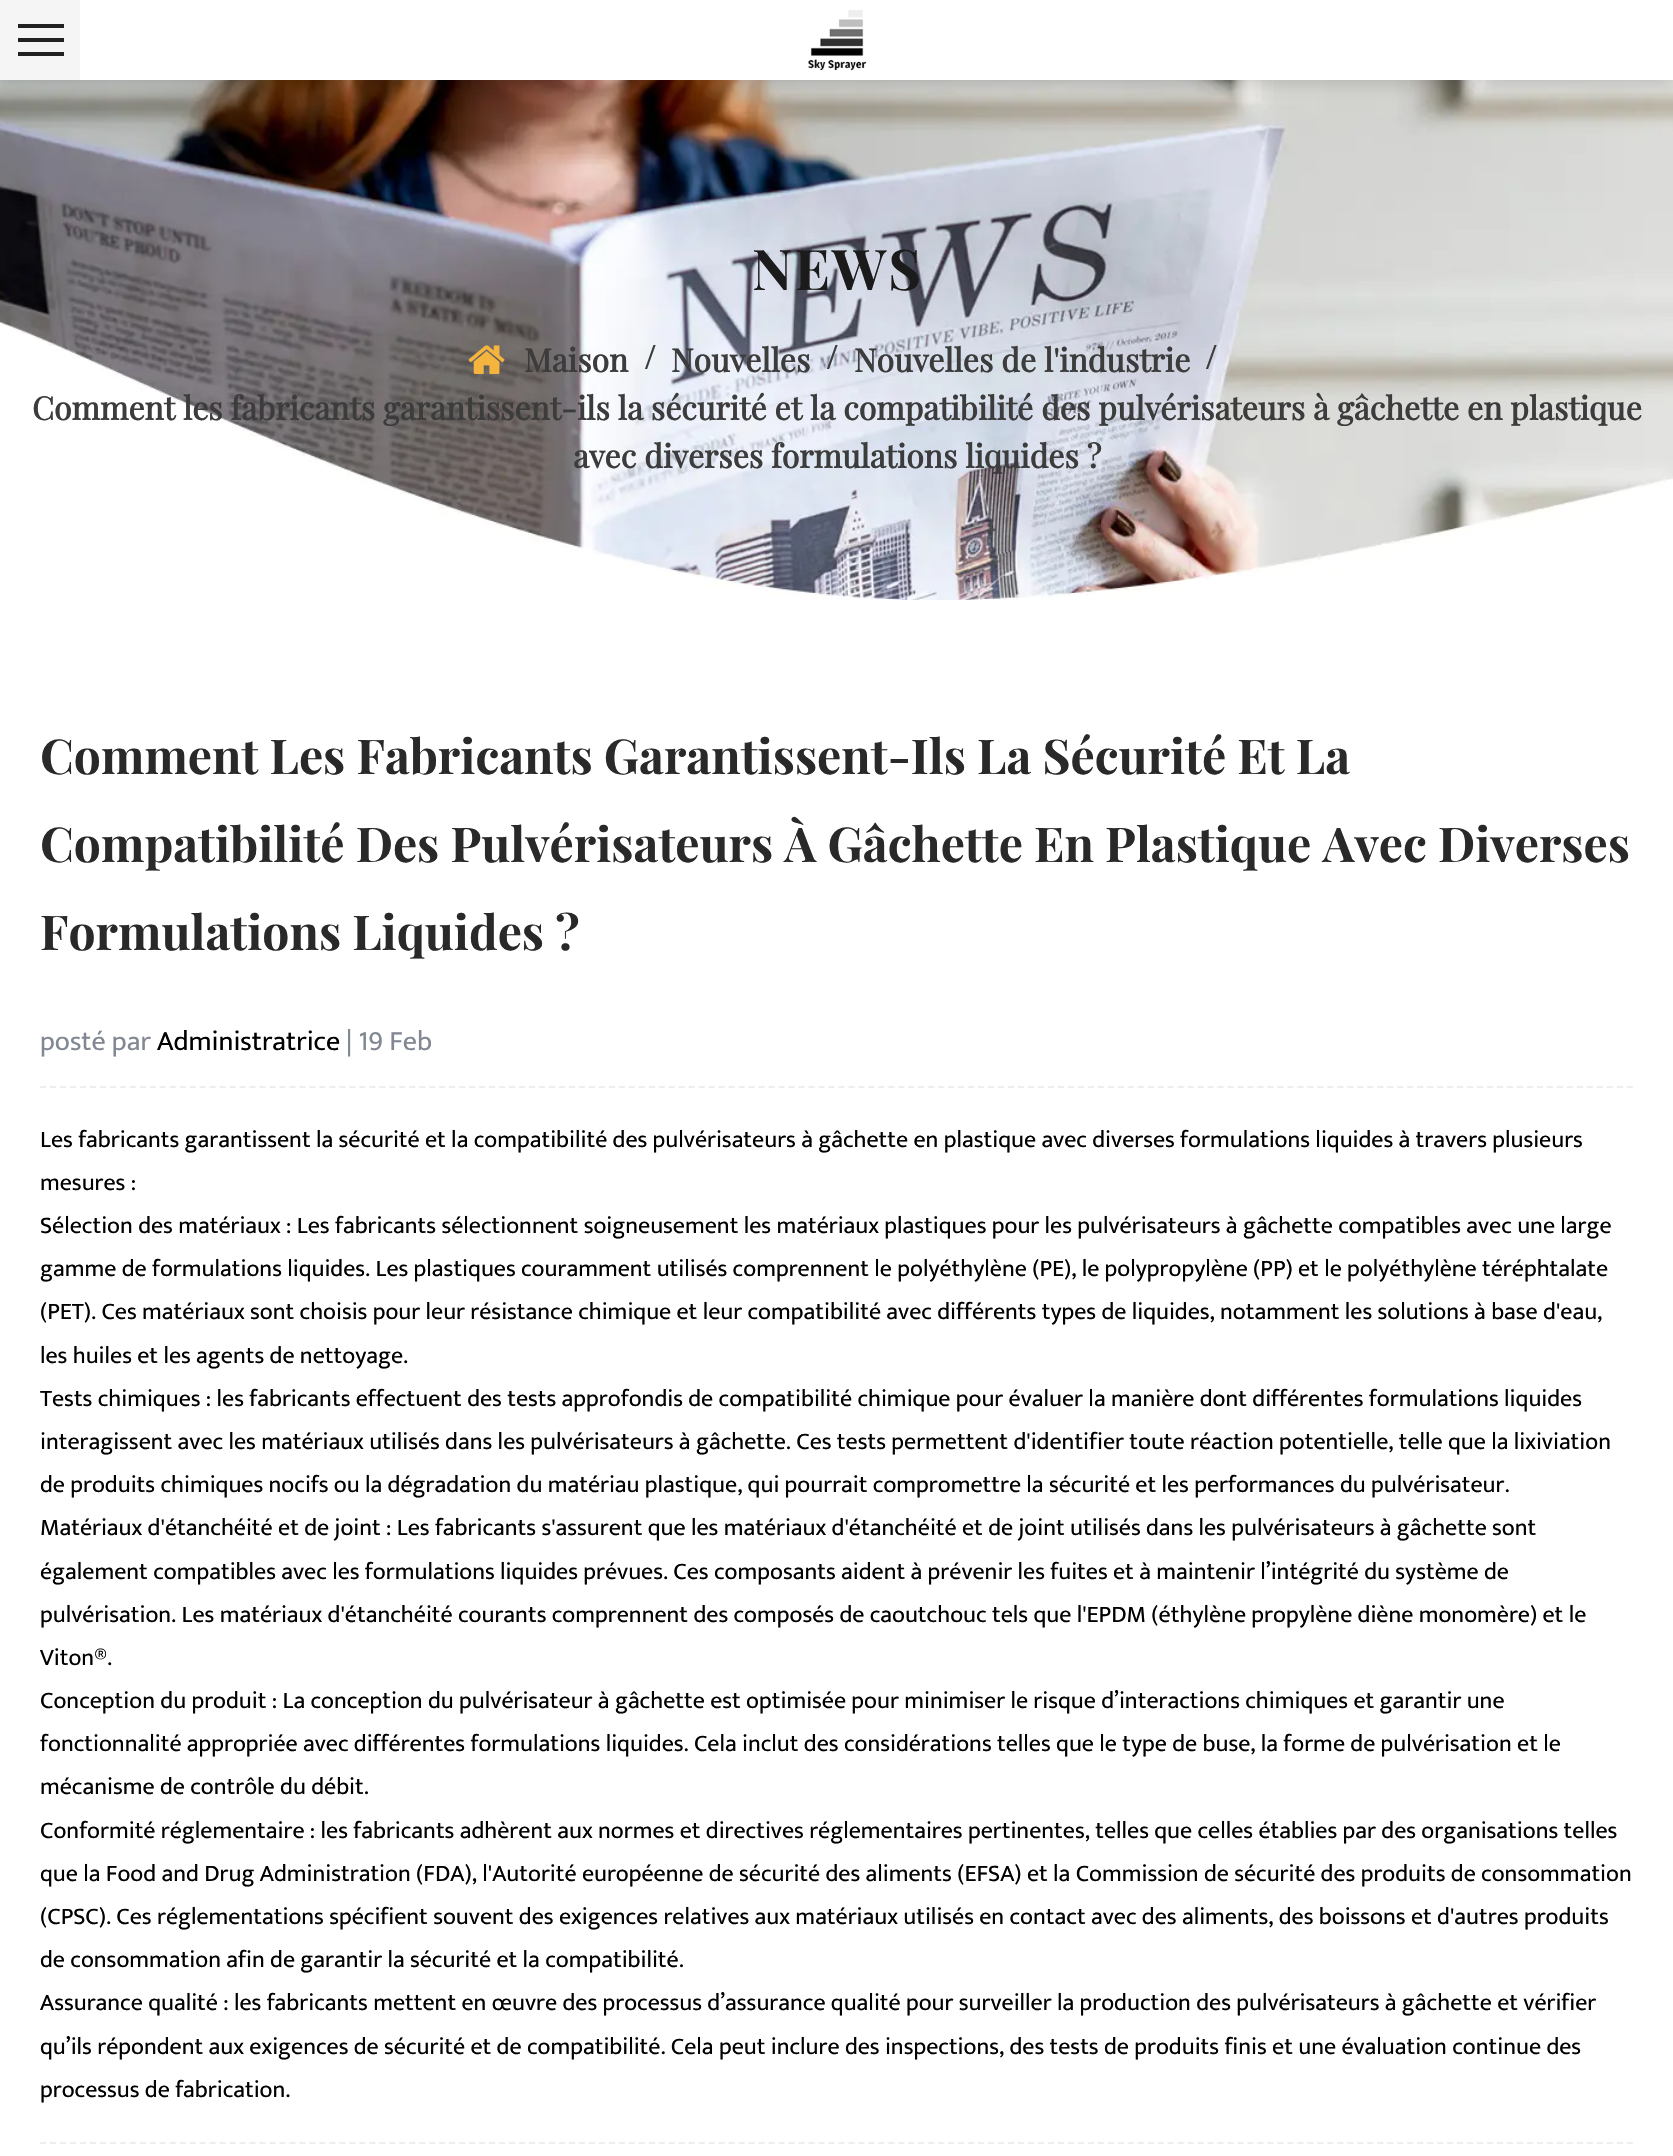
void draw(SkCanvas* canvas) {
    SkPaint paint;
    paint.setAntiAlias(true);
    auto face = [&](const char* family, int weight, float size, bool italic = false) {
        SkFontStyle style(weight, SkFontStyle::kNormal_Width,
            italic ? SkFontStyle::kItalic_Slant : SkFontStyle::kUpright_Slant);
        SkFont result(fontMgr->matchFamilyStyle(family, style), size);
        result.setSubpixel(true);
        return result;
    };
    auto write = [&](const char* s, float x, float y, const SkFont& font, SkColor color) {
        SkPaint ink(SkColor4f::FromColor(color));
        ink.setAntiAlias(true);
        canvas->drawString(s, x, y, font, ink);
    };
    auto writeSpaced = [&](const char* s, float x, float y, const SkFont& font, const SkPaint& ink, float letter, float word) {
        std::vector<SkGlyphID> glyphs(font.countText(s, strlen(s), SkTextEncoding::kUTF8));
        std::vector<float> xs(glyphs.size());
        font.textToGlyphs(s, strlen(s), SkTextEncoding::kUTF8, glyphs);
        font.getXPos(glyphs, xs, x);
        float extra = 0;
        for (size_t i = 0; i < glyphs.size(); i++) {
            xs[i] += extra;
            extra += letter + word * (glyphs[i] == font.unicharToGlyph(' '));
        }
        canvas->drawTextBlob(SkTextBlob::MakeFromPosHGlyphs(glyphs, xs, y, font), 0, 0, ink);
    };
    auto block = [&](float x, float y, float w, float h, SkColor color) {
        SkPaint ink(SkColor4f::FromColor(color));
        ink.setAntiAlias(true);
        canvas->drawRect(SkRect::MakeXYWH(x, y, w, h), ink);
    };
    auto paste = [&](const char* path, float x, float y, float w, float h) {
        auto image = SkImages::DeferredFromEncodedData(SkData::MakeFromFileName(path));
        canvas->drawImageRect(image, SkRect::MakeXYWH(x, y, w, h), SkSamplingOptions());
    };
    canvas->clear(SK_ColorWHITE);
    paste("pic2.png", 0, 80, 1673, 520);
    paint.setColor(SkColorSetARGB(51, 0, 0, 0));
    paint.setMaskFilter(SkMaskFilter::MakeBlur(kNormal_SkBlurStyle, 10));
    canvas->drawRect(SkRect::MakeXYWH(0, 0, 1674, 80), paint);
    paint.setMaskFilter(nullptr);
    block(80, 0, 1593, 80, SK_ColorWHITE);
    paste("pic1.png", 808, 10, 59, 61);
    block(0, 0, 80, 80, SkColorSetRGB(245, 245, 245));
    block(18, 24, 46, 4, SkColorSetRGB(34, 34, 34));
    block(18, 38, 46, 4, SkColorSetRGB(34, 34, 34));
    block(18, 52, 46, 4, SkColorSetRGB(34, 34, 34));
    auto kFont1 = face("Playfair Display", 700, 56);
    paint.setColor(SkColorSetRGB(27, 27, 27));
    writeSpaced("NEWS", 752, 290, kFont1, paint, 2, 0);
    paste("pic3.png", 468, 345, 37, 29);
    auto kFont2 = face("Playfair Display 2", 700, 32);
    write("Maison", 524, 372, kFont2, SkColorSetRGB(60, 60, 60));
    auto kFont3 = face("Mukta", 400, 28);
    write("/", 645, 366, kFont3, SkColorSetRGB(60, 60, 60));
    write("Nouvelles", 671, 372, kFont2, SkColorSetRGB(60, 60, 60));
    write("/", 827, 366, kFont3, SkColorSetRGB(60, 60, 60));
    write("Nouvelles de l'industrie", 854, 372, kFont2, SkColorSetRGB(60, 60, 60));
    write("/", 1206, 366, kFont3, SkColorSetRGB(60, 60, 60));
    write("Comment les fabricants garantissent-ils la sécurité et la compatibilité des pulvérisateurs à gâchette en plastique", 32, 420, kFont2, SkColorSetRGB(60, 60, 60));
    write("avec diverses formulations liquides ?", 573, 468, kFont2, SkColorSetRGB(60, 60, 60));
    auto kFont4 = face("Playfair Display", 700, 48);
    write("Comment Les Fabricants Garantissent-Ils La Sécurité Et La", 40, 774, kFont4, SkColorSetRGB(41, 41, 41));
    write("Compatibilité Des Pulvérisateurs À Gâchette En Plastique Avec Diverses", 40, 862, kFont4, SkColorSetRGB(41, 41, 41));
    write("Formulations Liquides ?", 40, 950, kFont4, SkColorSetRGB(41, 41, 41));
    write("posté par", 40, 1050, kFont3, SkColorSetRGB(130, 136, 147));
    write("Administratrice", 157, 1050, kFont3, SK_ColorBLACK);
    write("| 19 Feb", 346, 1050, kFont3, SkColorSetRGB(130, 136, 147));
    paint.setStyle(SkPaint::kStroke_Style);
    paint.setStrokeWidth(2);
    paint.setColor(SkColorSetRGB(238, 238, 238));
    paint.setPathEffect(SkDashPathEffect::Make({{6, 3.98f}}, 0));
    canvas->drawPath(SkPathBuilder().moveTo(40, 1087).lineTo(1634, 1087).detach(), paint);
    paint.setPathEffect(nullptr);
    paint.setPathEffect(SkDashPathEffect::Make({{6, 3.98f}}, 0));
    canvas->drawPath(SkPathBuilder().moveTo(40, 2143).lineTo(1634, 2143).detach(), paint);
    paint.setPathEffect(nullptr);
    auto kFont5 = face("Mukta", 400, 24);
    write("Les fabricants garantissent la sécurité et la compatibilité des pulvérisateurs à gâchette en plastique avec diverses formulations liquides à travers plusieurs", 40, 1147, kFont5, SK_ColorBLACK);
    write("mesures :", 40, 1190, kFont5, SK_ColorBLACK);
    write("Sélection des matériaux : Les fabricants sélectionnent soigneusement les matériaux plastiques pour les pulvérisateurs à gâchette compatibles avec une large", 40, 1233, kFont5, SK_ColorBLACK);
    write("gamme de formulations liquides. Les plastiques couramment utilisés comprennent le polyéthylène (PE), le polypropylène (PP) et le polyéthylène téréphtalate", 40, 1276, kFont5, SK_ColorBLACK);
    write("(PET). Ces matériaux sont choisis pour leur résistance chimique et leur compatibilité avec différents types de liquides, notamment les solutions à base d'eau,", 40, 1319, kFont5, SK_ColorBLACK);
    write("les huiles et les agents de nettoyage.", 40, 1363, kFont5, SK_ColorBLACK);
    write("Tests chimiques : les fabricants effectuent des tests approfondis de compatibilité chimique pour évaluer la manière dont différentes formulations liquides", 40, 1406, kFont5, SK_ColorBLACK);
    write("interagissent avec les matériaux utilisés dans les pulvérisateurs à gâchette. Ces tests permettent d'identifier toute réaction potentielle, telle que la lixiviation", 40, 1449, kFont5, SK_ColorBLACK);
    write("de produits chimiques nocifs ou la dégradation du matériau plastique, qui pourrait compromettre la sécurité et les performances du pulvérisateur.", 40, 1492, kFont5, SK_ColorBLACK);
    write("Matériaux d'étanchéité et de joint : Les fabricants s'assurent que les matériaux d'étanchéité et de joint utilisés dans les pulvérisateurs à gâchette sont", 40, 1535, kFont5, SK_ColorBLACK);
    write("également compatibles avec les formulations liquides prévues. Ces composants aident à prévenir les fuites et à maintenir l’intégrité du système de", 40, 1579, kFont5, SK_ColorBLACK);
    write("pulvérisation. Les matériaux d'étanchéité courants comprennent des composés de caoutchouc tels que l'EPDM (éthylène propylène diène monomère) et le", 40, 1622, kFont5, SK_ColorBLACK);
    write("Viton®.", 40, 1665, kFont5, SK_ColorBLACK);
    write("Conception du produit : La conception du pulvérisateur à gâchette est optimisée pour minimiser le risque d’interactions chimiques et garantir une", 40, 1708, kFont5, SK_ColorBLACK);
    write("fonctionnalité appropriée avec différentes formulations liquides. Cela inclut des considérations telles que le type de buse, la forme de pulvérisation et le", 40, 1751, kFont5, SK_ColorBLACK);
    write("mécanisme de contrôle du débit.", 40, 1794, kFont5, SK_ColorBLACK);
    write("Conformité réglementaire : les fabricants adhèrent aux normes et directives réglementaires pertinentes, telles que celles établies par des organisations telles", 40, 1838, kFont5, SK_ColorBLACK);
    write("que la Food and Drug Administration (FDA), l'Autorité européenne de sécurité des aliments (EFSA) et la Commission de sécurité des produits de consommation", 40, 1881, kFont5, SK_ColorBLACK);
    write("(CPSC). Ces réglementations spécifient souvent des exigences relatives aux matériaux utilisés en contact avec des aliments, des boissons et d'autres produits", 40, 1924, kFont5, SK_ColorBLACK);
    write("de consommation afin de garantir la sécurité et la compatibilité.", 40, 1967, kFont5, SK_ColorBLACK);
    write("Assurance qualité : les fabricants mettent en œuvre des processus d’assurance qualité pour surveiller la production des pulvérisateurs à gâchette et vérifier", 40, 2010, kFont5, SK_ColorBLACK);
    write("qu’ils répondent aux exigences de sécurité et de compatibilité. Cela peut inclure des inspections, des tests de produits finis et une évaluation continue des", 40, 2054, kFont5, SK_ColorBLACK);
    write("processus de fabrication.", 40, 2097, kFont5, SK_ColorBLACK);
}
